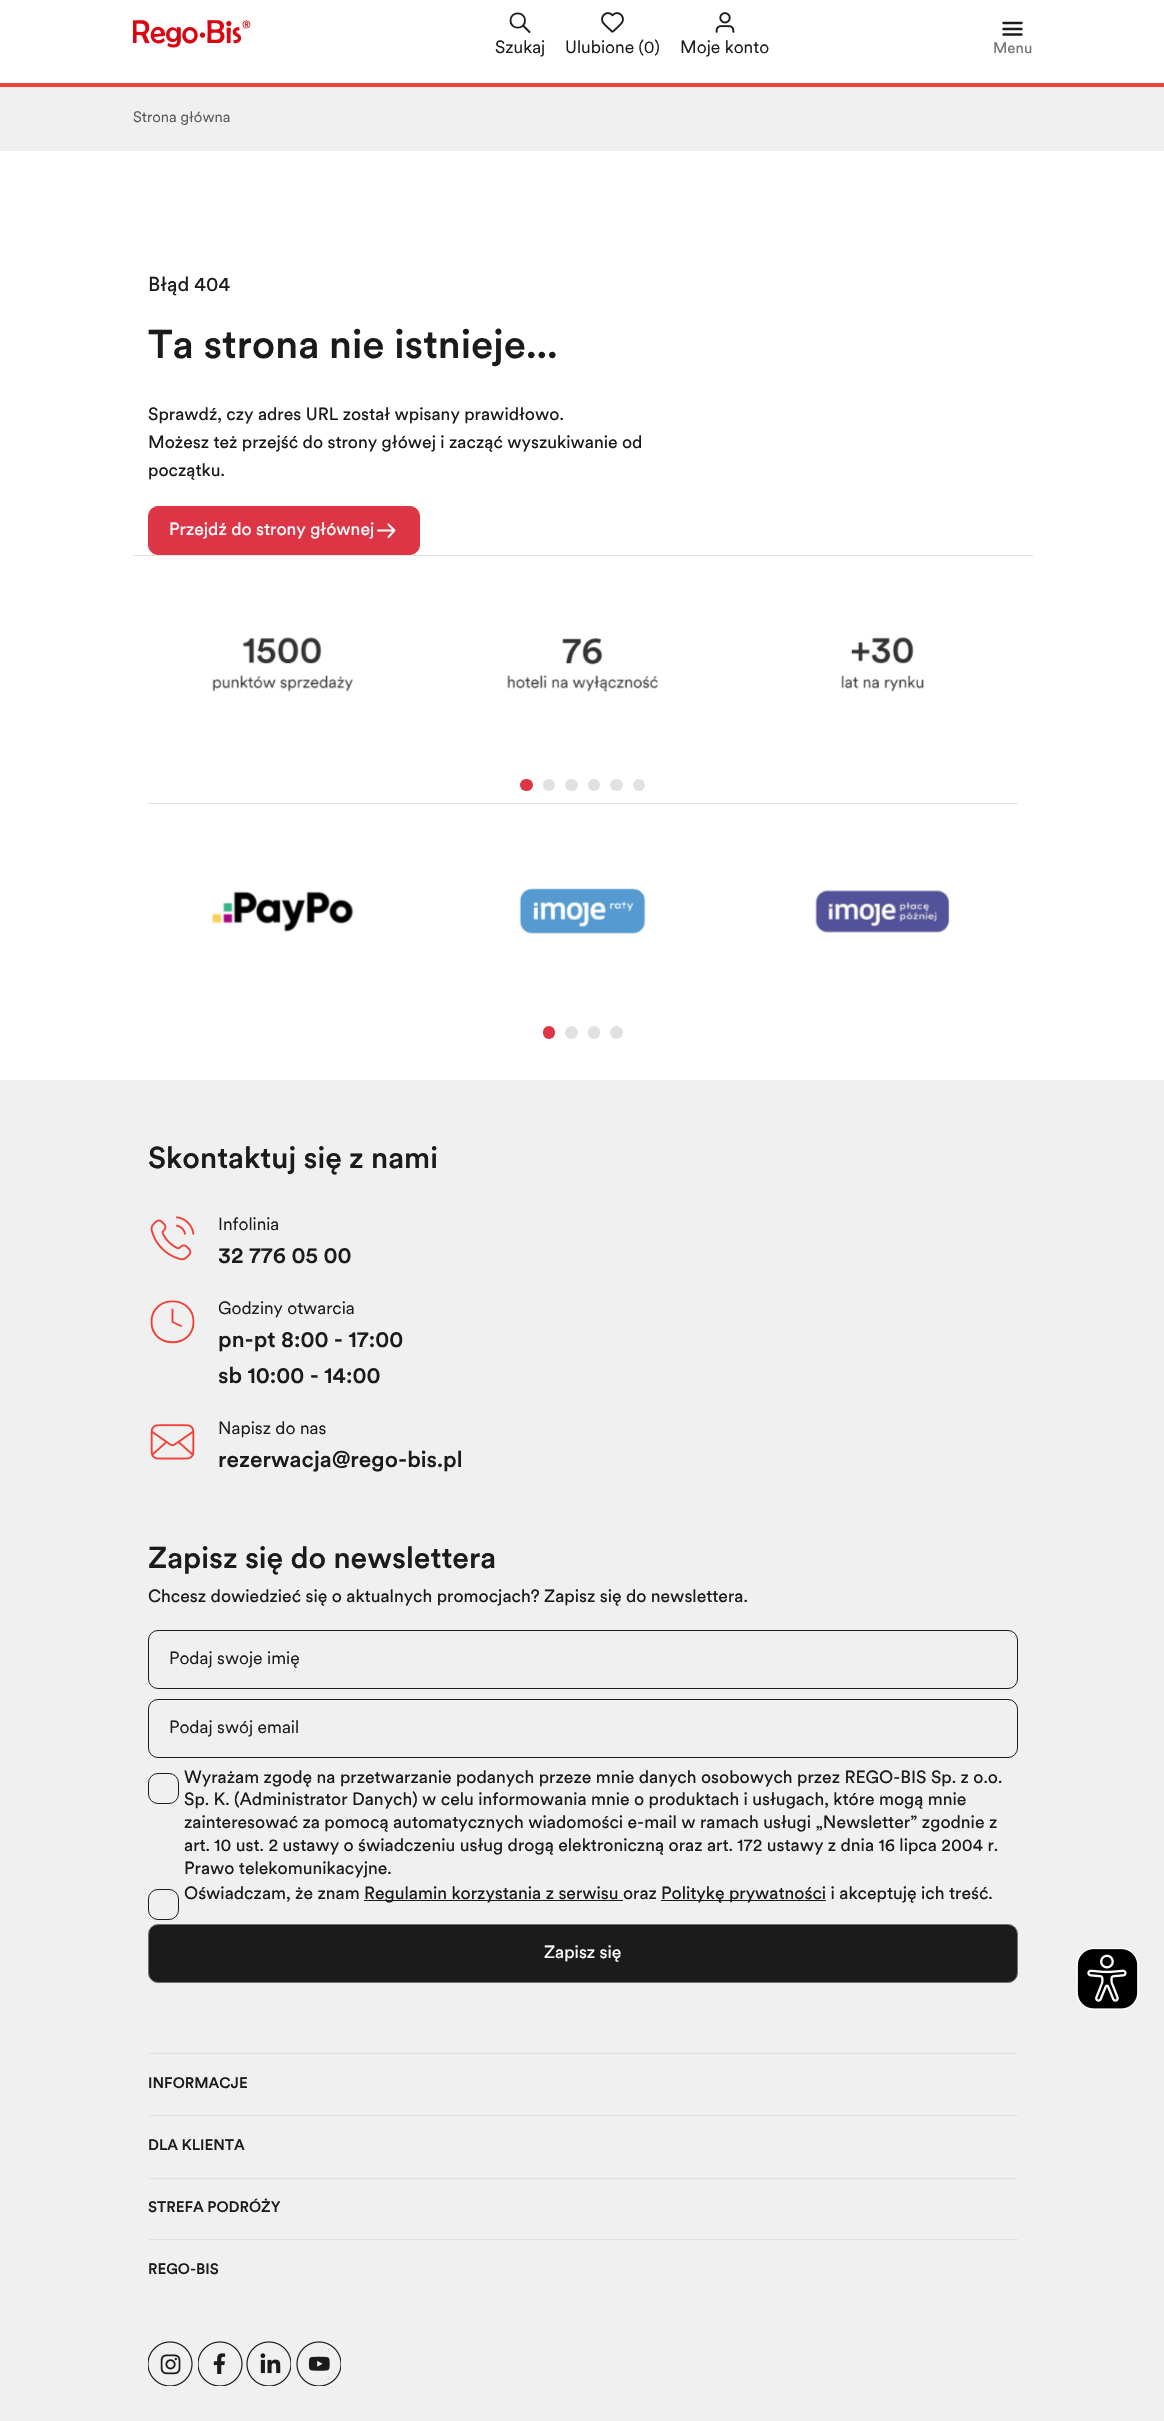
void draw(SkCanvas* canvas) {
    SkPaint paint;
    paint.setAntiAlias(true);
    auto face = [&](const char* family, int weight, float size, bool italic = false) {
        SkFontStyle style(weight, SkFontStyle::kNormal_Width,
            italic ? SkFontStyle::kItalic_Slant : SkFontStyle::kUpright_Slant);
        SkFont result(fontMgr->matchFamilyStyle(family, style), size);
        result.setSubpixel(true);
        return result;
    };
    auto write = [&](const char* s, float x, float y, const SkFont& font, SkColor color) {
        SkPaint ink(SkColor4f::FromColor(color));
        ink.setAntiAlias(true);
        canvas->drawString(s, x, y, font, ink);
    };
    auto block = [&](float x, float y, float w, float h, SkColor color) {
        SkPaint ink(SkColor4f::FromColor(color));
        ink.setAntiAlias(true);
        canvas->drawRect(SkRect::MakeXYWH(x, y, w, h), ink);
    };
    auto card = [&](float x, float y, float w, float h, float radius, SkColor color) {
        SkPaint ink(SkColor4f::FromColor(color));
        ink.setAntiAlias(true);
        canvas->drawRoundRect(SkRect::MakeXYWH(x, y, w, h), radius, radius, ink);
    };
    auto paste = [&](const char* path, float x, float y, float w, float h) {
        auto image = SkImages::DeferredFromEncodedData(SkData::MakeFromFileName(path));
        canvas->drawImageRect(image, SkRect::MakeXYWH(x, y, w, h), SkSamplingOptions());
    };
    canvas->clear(SK_ColorWHITE);
    paste("pic1.png", 133, 20, 118, 28);
    paint.setStyle(SkPaint::kStroke_Style);
    paint.setStrokeWidth(1.9f);
    paint.setStrokeCap(SkPaint::kRound_Cap);
    paint.setStrokeJoin(SkPaint::kRound_Join);
    paint.setColor(SkColorSetRGB(27, 27, 27));
    canvas->drawPath(SkPathBuilder().moveTo(529.5f, 32).lineTo(523, 25.5f).moveTo(525, 20.5f).cubicTo(525, 30, 510.5f, 30, 510.5f, 20.5f).cubicTo(510.5f, 11, 525, 11, 525, 20.5f).close().detach(), paint);
    auto kFont1 = face("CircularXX", 400, 17.5f);
    write("Szukaj", 495, 53, kFont1, SkColorSetRGB(27, 27, 27));
    paste("pic2.png", 601, 12, 23, 21);
    write("Ulubione (0)", 565, 53, kFont1, SkColorSetRGB(27, 27, 27));
    paste("pic3.png", 715, 12, 20, 21);
    write("Moje konto", 680, 53, kFont1, SkColorSetRGB(27, 27, 27));
    paint.setStrokeWidth(2.4f);
    canvas->drawPath(SkPathBuilder().moveTo(1003.5f, 29).lineTo(1021.5f, 29).moveTo(1003.5f, 23).lineTo(1021.5f, 23).moveTo(1003.5f, 34.5f).lineTo(1021.5f, 34.5f).detach(), paint);
    auto kFont2 = face("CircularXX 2", 400, 15);
    write("Menu", 993, 53, kFont2, SkColorSetRGB(115, 115, 115));
    block(0, 87, 1164, 64, SkColorSetRGB(240, 240, 240));
    block(0, 83, 1164, 4, SkColorSetRGB(238, 66, 56));
    auto kFont3 = face("CircularXX", 400, 15);
    write("Strona główna", 133, 122, kFont3, SkColorSetRGB(88, 88, 88));
    auto kFont4 = face("CircularXX 2", 400, 20);
    write("Błąd 404", 148, 291, kFont4, SkColorSetRGB(27, 27, 27));
    auto kFont5 = face("CircularXX", 500, 40);
    write("Ta strona nie istnieje...", 148, 358, kFont5, SkColorSetRGB(27, 27, 27));
    auto kFont6 = face("CircularXX 2", 400, 17.5f);
    write("Sprawdź, czy adres URL został wpisany prawidłowo.", 148, 420, kFont6, SkColorSetRGB(27, 27, 27));
    write("Możesz też przejść do strony główej i zacząć wyszukiwanie od", 148, 448, kFont6, SkColorSetRGB(27, 27, 27));
    write("początku.", 148, 476, kFont6, SkColorSetRGB(27, 27, 27));
    paint.setStyle(SkPaint::kFill_Style);
    paint.setColor(SkColorSetRGB(220, 53, 69));
    canvas->drawRoundRect(SkRect::MakeXYWH(148.5f, 506.5f, 271, 48), 9.5f, 9.5f, paint);
    paint.setStyle(SkPaint::kStroke_Style);
    paint.setStrokeWidth(1);
    paint.setStrokeCap(SkPaint::kButt_Cap);
    paint.setStrokeJoin(SkPaint::kMiter_Join);
    canvas->drawRoundRect(SkRect::MakeXYWH(148.5f, 506.5f, 271, 48), 9.5f, 9.5f, paint);
    write("Przejdź do strony głównej", 169, 535, kFont6, SK_ColorWHITE);
    paint.setStrokeWidth(1.9f);
    paint.setStrokeCap(SkPaint::kRound_Cap);
    paint.setStrokeJoin(SkPaint::kRound_Join);
    paint.setColor(SK_ColorWHITE);
    canvas->drawPath(SkPathBuilder().moveTo(378, 530.5f).lineTo(394.5f, 530.5f).moveTo(394.5f, 530.5f).lineTo(388.5f, 524.5f).moveTo(394.5f, 530.5f).lineTo(388.5f, 537).detach(), paint);
    block(133, 555, 900, 1, SkColorSetRGB(225, 225, 225));
    paste("pic4.png", 212, 637, 141, 55);
    paste("pic5.png", 507, 638, 152, 54);
    paste("pic6.png", 841, 637, 83, 55);
    card(520, 779, 13, 12, 6, SkColorSetRGB(220, 53, 69));
    paint.setStyle(SkPaint::kFill_Style);
    paint.setColor(SkColorSetRGB(225, 225, 225));
    canvas->drawCircle(549, 785, 6, paint);
    card(565, 779, 13, 12, 6, SkColorSetRGB(225, 225, 225));
    canvas->drawCircle(594, 785, 6, paint);
    card(610, 779, 13, 12, 6, SkColorSetRGB(225, 225, 225));
    canvas->drawCircle(639, 785, 6, paint);
    block(148, 803, 870, 1, SkColorSetRGB(225, 225, 225));
    paste("pic7.png", 211, 891, 143, 41);
    paste("pic8.png", 519, 888, 127, 46);
    paste("pic9.png", 815, 889, 136, 44);
    card(543, 1026, 12, 13, 6, SkColorSetRGB(220, 53, 69));
    canvas->drawCircle(571.5f, 1032.5f, 6.5f, paint);
    card(588, 1026, 12, 13, 6, SkColorSetRGB(225, 225, 225));
    canvas->drawCircle(616.5f, 1032.5f, 6.5f, paint);
    block(0, 1080, 1164, 1341, SkColorSetRGB(240, 240, 240));
    auto kFont7 = face("CircularXX", 500, 30);
    write("Skontaktuj się z nami", 148, 1168, kFont7, SkColorSetRGB(27, 27, 27));
    paste("pic10.png", 150, 1216, 45, 45);
    write("Infolinia", 218, 1230, kFont1, SkColorSetRGB(27, 27, 27));
    auto kFont8 = face("CircularXX", 500, 22.5f);
    write("32 776 05 00", 218, 1263, kFont8, SkColorSetRGB(27, 27, 27));
    paint.setStyle(SkPaint::kStroke_Style);
    paint.setColor(SkColorSetRGB(238, 66, 56));
    canvas->drawPath(SkPathBuilder().moveTo(172.5f, 1309.5f).lineTo(172.5f, 1322).lineTo(181, 1326).moveTo(193.5f, 1322).cubicTo(193.5f, 1349, 151.5f, 1349, 151.5f, 1322).cubicTo(151.5f, 1294.5f, 193.5f, 1294.5f, 193.5f, 1322).close().detach(), paint);
    write("Godziny otwarcia", 218, 1314, kFont1, SkColorSetRGB(27, 27, 27));
    write("pn-pt 8:00 - 17:00", 218, 1347, kFont8, SkColorSetRGB(27, 27, 27));
    write("sb 10:00 - 14:00", 218, 1383, kFont8, SkColorSetRGB(27, 27, 27));
    paste("pic11.png", 150, 1424, 45, 36);
    write("Napisz do nas", 218, 1434, kFont1, SkColorSetRGB(27, 27, 27));
    write("rezerwacja@rego-bis.pl", 218, 1467, kFont8, SkColorSetRGB(27, 27, 27));
    write("Zapisz się do newslettera", 148, 1568, kFont7, SkColorSetRGB(27, 27, 27));
    write("Chcesz dowiedzieć się o aktualnych promocjach? Zapisz się do newslettera.", 148, 1602, kFont6, SkColorSetRGB(27, 27, 27));
    paint.setStrokeWidth(1);
    paint.setStrokeCap(SkPaint::kButt_Cap);
    paint.setStrokeJoin(SkPaint::kMiter_Join);
    paint.setColor(SkColorSetRGB(27, 27, 27));
    canvas->drawRoundRect(SkRect::MakeXYWH(148.5f, 1630.5f, 869, 58), 9.5f, 9.5f, paint);
    write("Podaj swoje imię", 169, 1664, kFont1, SkColorSetRGB(27, 27, 27));
    canvas->drawRoundRect(SkRect::MakeXYWH(148.5f, 1699.5f, 869, 58), 9.5f, 9.5f, paint);
    write("Podaj swój email", 169, 1733, kFont1, SkColorSetRGB(27, 27, 27));
    canvas->drawRoundRect(SkRect::MakeXYWH(148.5f, 1773.5f, 30, 30), 9.5f, 9.5f, paint);
    write("Wyrażam zgodę na przetwarzanie podanych przeze mnie danych osobowych przez REGO-BIS Sp. z o.o.", 184, 1783, kFont6, SkColorSetRGB(27, 27, 27));
    write("Sp. K. (Administrator Danych) w celu informowania mnie o produktach i usługach, które mogą mnie", 184, 1805, kFont6, SkColorSetRGB(27, 27, 27));
    write("zainteresować za pomocą automatycznych wiadomości e-mail w ramach usługi „Newsletter” zgodnie z", 184, 1828, kFont6, SkColorSetRGB(27, 27, 27));
    write("art. 10 ust. 2 ustawy o świadczeniu usług drogą elektroniczną oraz art. 172 ustawy z dnia 16 lipca 2004 r.", 184, 1851, kFont6, SkColorSetRGB(27, 27, 27));
    write("Prawo telekomunikacyjne.", 184, 1874, kFont6, SkColorSetRGB(27, 27, 27));
    canvas->drawRoundRect(SkRect::MakeXYWH(148.5f, 1889.5f, 30, 30), 9.5f, 9.5f, paint);
    write("Oświadczam, że znam", 184, 1899, kFont6, SkColorSetRGB(27, 27, 27));
    block(364, 1900, 259, 1, SkColorSetRGB(27, 27, 27));
    write("Regulamin korzystania z serwisu oraz", 364, 1899, kFont6, SkColorSetRGB(27, 27, 27));
    block(661, 1900, 165, 1, SkColorSetRGB(27, 27, 27));
    write("Politykę prywatności i akceptuję ich treść.", 661, 1899, kFont6, SkColorSetRGB(27, 27, 27));
    paint.setStyle(SkPaint::kFill_Style);
    canvas->drawRoundRect(SkRect::MakeXYWH(148.5f, 1924.5f, 869, 58), 9.5f, 9.5f, paint);
    paint.setStyle(SkPaint::kStroke_Style);
    paint.setColor(SkColorSetRGB(108, 117, 125));
    canvas->drawRoundRect(SkRect::MakeXYWH(148.5f, 1924.5f, 869, 58), 9.5f, 9.5f, paint);
    write("Zapisz się", 544, 1958, kFont6, SK_ColorWHITE);
    block(148, 2053, 870, 1, SkColorSetRGB(225, 225, 225));
    auto kFont9 = face("CircularXX", 500, 15);
    write("INFORMACJE", 148, 2088, kFont9, SkColorSetRGB(27, 27, 27));
    block(148, 2115, 870, 1, SkColorSetRGB(225, 225, 225));
    write("DLA KLIENTA", 148, 2150, kFont9, SkColorSetRGB(27, 27, 27));
    block(148, 2178, 870, 1, SkColorSetRGB(225, 225, 225));
    write("STREFA PODRÓŻY", 148, 2212, kFont9, SkColorSetRGB(27, 27, 27));
    block(148, 2239, 870, 1, SkColorSetRGB(225, 225, 225));
    write("REGO-BIS", 148, 2274, kFont9, SkColorSetRGB(27, 27, 27));
    paste("pic12.png", 148, 2341, 45, 45);
    paste("pic13.png", 198, 2341, 45, 45);
    paste("pic14.png", 246, 2341, 45, 45);
    paste("pic15.png", 296, 2341, 45, 45);
    paste("pic16.png", 1076, 1948, 63, 62);
}
